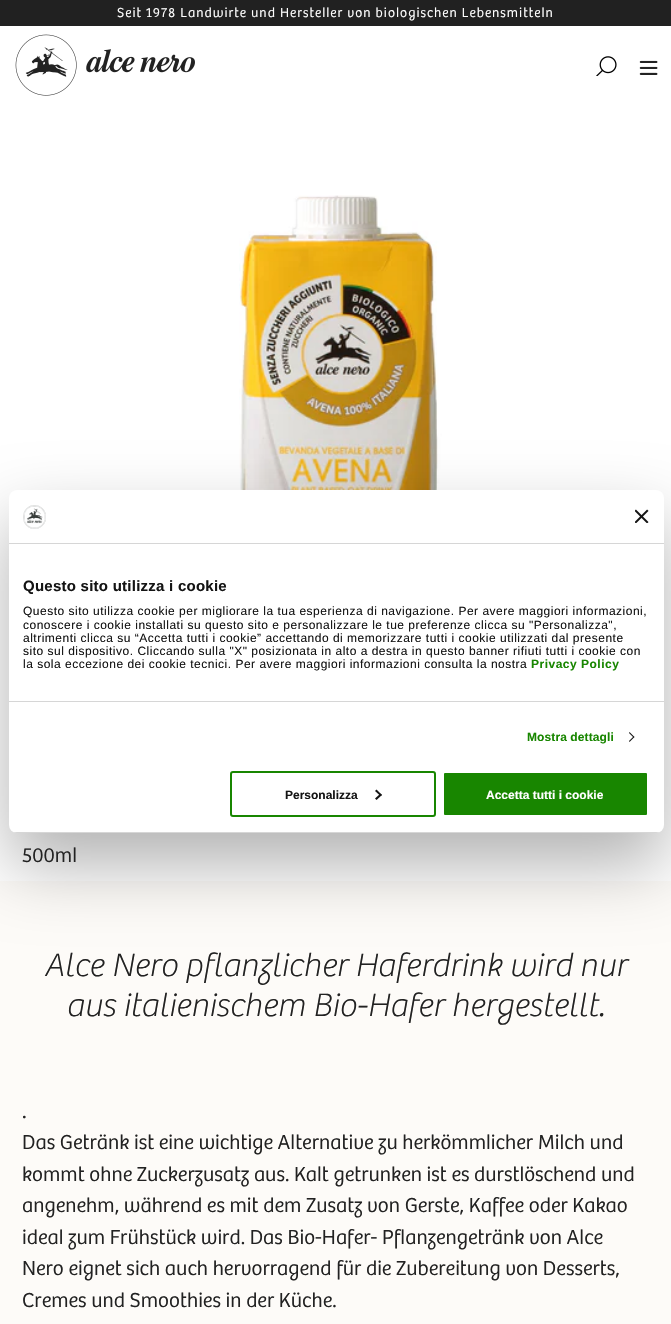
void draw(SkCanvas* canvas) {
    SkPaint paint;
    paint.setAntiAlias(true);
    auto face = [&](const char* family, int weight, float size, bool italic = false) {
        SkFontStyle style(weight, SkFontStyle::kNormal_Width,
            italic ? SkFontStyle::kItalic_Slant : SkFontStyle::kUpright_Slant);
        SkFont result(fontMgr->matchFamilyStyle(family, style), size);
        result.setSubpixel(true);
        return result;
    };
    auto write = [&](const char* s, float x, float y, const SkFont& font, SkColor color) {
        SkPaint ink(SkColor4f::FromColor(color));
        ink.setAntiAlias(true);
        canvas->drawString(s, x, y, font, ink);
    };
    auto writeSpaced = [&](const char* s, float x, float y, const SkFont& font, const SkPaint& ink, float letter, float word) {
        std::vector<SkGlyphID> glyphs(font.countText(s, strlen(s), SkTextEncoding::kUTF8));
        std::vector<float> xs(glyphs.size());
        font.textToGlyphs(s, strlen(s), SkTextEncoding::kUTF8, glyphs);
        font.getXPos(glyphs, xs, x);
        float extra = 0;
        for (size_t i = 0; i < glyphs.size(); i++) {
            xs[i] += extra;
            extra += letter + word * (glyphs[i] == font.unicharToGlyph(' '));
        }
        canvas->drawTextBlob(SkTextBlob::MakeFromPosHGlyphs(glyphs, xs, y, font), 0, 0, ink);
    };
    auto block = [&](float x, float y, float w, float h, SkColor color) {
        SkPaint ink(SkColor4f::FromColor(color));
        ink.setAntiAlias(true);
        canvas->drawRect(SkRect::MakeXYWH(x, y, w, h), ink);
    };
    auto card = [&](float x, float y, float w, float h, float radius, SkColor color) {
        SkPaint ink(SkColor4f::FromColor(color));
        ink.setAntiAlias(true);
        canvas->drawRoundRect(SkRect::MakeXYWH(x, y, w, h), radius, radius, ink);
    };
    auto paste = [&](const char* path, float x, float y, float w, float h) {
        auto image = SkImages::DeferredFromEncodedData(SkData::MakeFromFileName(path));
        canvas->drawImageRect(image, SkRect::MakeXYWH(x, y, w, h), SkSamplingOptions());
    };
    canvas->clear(SK_ColorWHITE);
    block(0, 0, 671, 26, SkColorSetRGB(33, 33, 33));
    auto kFont1 = face("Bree", 300, 13.6f);
    paint.setColor(SK_ColorWHITE);
    writeSpaced("Seit 1978 Landwirte und Hersteller von biologischen Lebensmitteln", 117, 17, kFont1, paint, 1, 0);
    paste("pic1.png", 15, 34, 180, 62);
    paste("pic2.png", 596, 56, 21, 20);
    paste("pic3.png", 639, 60, 19, 15);
    paste("pic6.png", 239, 195, 322, 295);
    block(0, 881, 671, 443, SkColorSetRGB(253, 251, 248));
    paint.setColor(SkColorSetARGB(77, 0, 0, 0));
    paint.setMaskFilter(SkMaskFilter::MakeBlur(kNormal_SkBlurStyle, 34));
    canvas->drawRoundRect(SkRect::MakeXYWH(9, 522, 655, 343), 8, 8, paint);
    paint.setMaskFilter(nullptr);
    card(9, 490, 655, 343, 8, SK_ColorWHITE);
    block(9, 543, 655, 1, SkColorSetRGB(214, 214, 214));
    paste("pic4.png", 23, 505, 23, 24);
    paste("pic5.png", 635, 509, 14, 14);
    block(9, 701, 655, 1, SkColorSetRGB(214, 214, 214));
    auto kFont2 = face("Liberation Sans", 700, 15);
    paint.setColor(SkColorSetRGB(20, 20, 20));
    writeSpaced("Questo sito utilizza i cookie", 23, 591, kFont2, paint, 0.25f, 0);
    auto kFont3 = face("Liberation Sans", 400, 12);
    writeSpaced("Questo sito utilizza cookie per migliorare la tua esperienza di navigazione. Per avere maggiori informazioni,", 23, 615, kFont3, paint, 0.5f, 0);
    writeSpaced("conoscere i cookie installati su questo sito e personalizzare le tue preferenze clicca su \"Personalizza\",", 23, 629, kFont3, paint, 0.5f, 0);
    writeSpaced("altrimenti clicca su “Accetta tutti i cookie” accettando di memorizzare tutti i cookie utilizzati dal presente", 23, 642, kFont3, paint, 0.5f, 0);
    writeSpaced("sito sul dispositivo. Cliccando sulla \"X\" posizionata in alto a destra in questo banner rifiuti tutti i cookie con", 23, 655, kFont3, paint, 0.5f, 0);
    writeSpaced("la sola eccezione dei cookie tecnici. Per avere maggiori informazioni consulta la nostra", 23, 668, kFont3, paint, 0.5f, 0);
    auto kFont4 = face("Liberation Sans", 700, 12);
    paint.setColor(SkColorSetRGB(24, 134, 0));
    writeSpaced("Privacy Policy", 531, 668, kFont4, paint, 0.5f, 0);
    writeSpaced("Mostra dettagli", 527, 741, kFont4, paint, 0.1f, 0);
    paint.setColor(SkColorSetRGB(20, 20, 20));
    canvas->drawPath(SkPathBuilder().moveTo(629.5f, 732).lineTo(634.5f, 737).lineTo(633.5f, 737.5f).lineTo(629, 733).close().detach(), paint);
    canvas->drawPath(SkPathBuilder().moveTo(633.5f, 736.5f).lineTo(634.5f, 737).lineTo(629.5f, 742).lineTo(629, 741).close().detach(), paint);
    canvas->save();
    canvas->clipPath(SkPathBuilder().moveTo(17, 490).lineTo(656, 490).cubicTo(660.5f, 490, 664, 493.5f, 664, 498).lineTo(664, 825).cubicTo(664, 829.5f, 660.5f, 833, 656, 833).lineTo(17, 833).cubicTo(12.5f, 833, 9, 829.5f, 9, 825).lineTo(9, 498).cubicTo(9, 493.5f, 12.5f, 490, 17, 490).close().detach(), true);
    block(9, 832, 655, 1, SkColorSetRGB(214, 214, 214));
    canvas->restore();
    paint.setStyle(SkPaint::kStroke_Style);
    paint.setStrokeWidth(2);
    paint.setColor(SkColorSetRGB(24, 134, 0));
    canvas->drawRoundRect(SkRect::MakeXYWH(231, 772, 204, 44), 2, 2, paint);
    write("Personalizza", 285, 799, kFont4, SkColorSetRGB(20, 20, 20));
    paint.setStyle(SkPaint::kFill_Style);
    paint.setColor(SkColorSetRGB(20, 20, 20));
    canvas->drawPath(SkPathBuilder().moveTo(376.5f, 789.5f).lineTo(382, 795).lineTo(380.5f, 796).lineTo(375, 791).close().detach(), paint);
    canvas->drawPath(SkPathBuilder().moveTo(380.5f, 793.5f).lineTo(382, 795).lineTo(376.5f, 800).lineTo(375, 798.5f).close().detach(), paint);
    paint.setColor(SkColorSetRGB(24, 134, 0));
    canvas->drawRoundRect(SkRect::MakeXYWH(443, 772, 205, 44), 2, 2, paint);
    paint.setStyle(SkPaint::kStroke_Style);
    paint.setColor(SK_ColorWHITE);
    canvas->drawRoundRect(SkRect::MakeXYWH(443, 772, 205, 44), 2, 2, paint);
    write("Accetta tutti i cookie", 486, 799, kFont4, SK_ColorWHITE);
    auto kFont5 = face("Bree", 300, 21);
    write("500ml", 22, 862, kFont5, SkColorSetRGB(34, 34, 34));
    auto kFont6 = face("Bree", 100, 33.6f, true);
    write("Alce Nero pflanzlicher Haferdrink wird nur", 44, 976, kFont6, SkColorSetRGB(34, 34, 34));
    write("aus italienischem Bio-Hafer hergestellt.", 66, 1016, kFont6, SkColorSetRGB(34, 34, 34));
    auto kFont7 = face("Bree", 300, 22);
    write(".", 22, 1118, kFont7, SkColorSetRGB(34, 34, 34));
    write("Das Getränk ist eine wichtige Alternative zu herkömmlicher Milch und", 22, 1149, kFont5, SkColorSetRGB(34, 34, 34));
    write("kommt ohne Zuckerzusatz aus. Kalt getrunken ist es durstlöschend und", 22, 1181, kFont5, SkColorSetRGB(34, 34, 34));
    write("angenehm, während es mit dem Zusatz von Gerste, Kaffee oder Kakao", 22, 1212, kFont5, SkColorSetRGB(34, 34, 34));
    write("ideal zum Frühstück wird. Das Bio-Hafer- Pflanzengetränk von Alce", 22, 1244, kFont5, SkColorSetRGB(34, 34, 34));
    write("Nero eignet sich auch hervorragend für die Zubereitung von Desserts,", 22, 1275, kFont5, SkColorSetRGB(34, 34, 34));
    write("Cremes und Smoothies in der Küche.", 22, 1307, kFont5, SkColorSetRGB(34, 34, 34));
}
